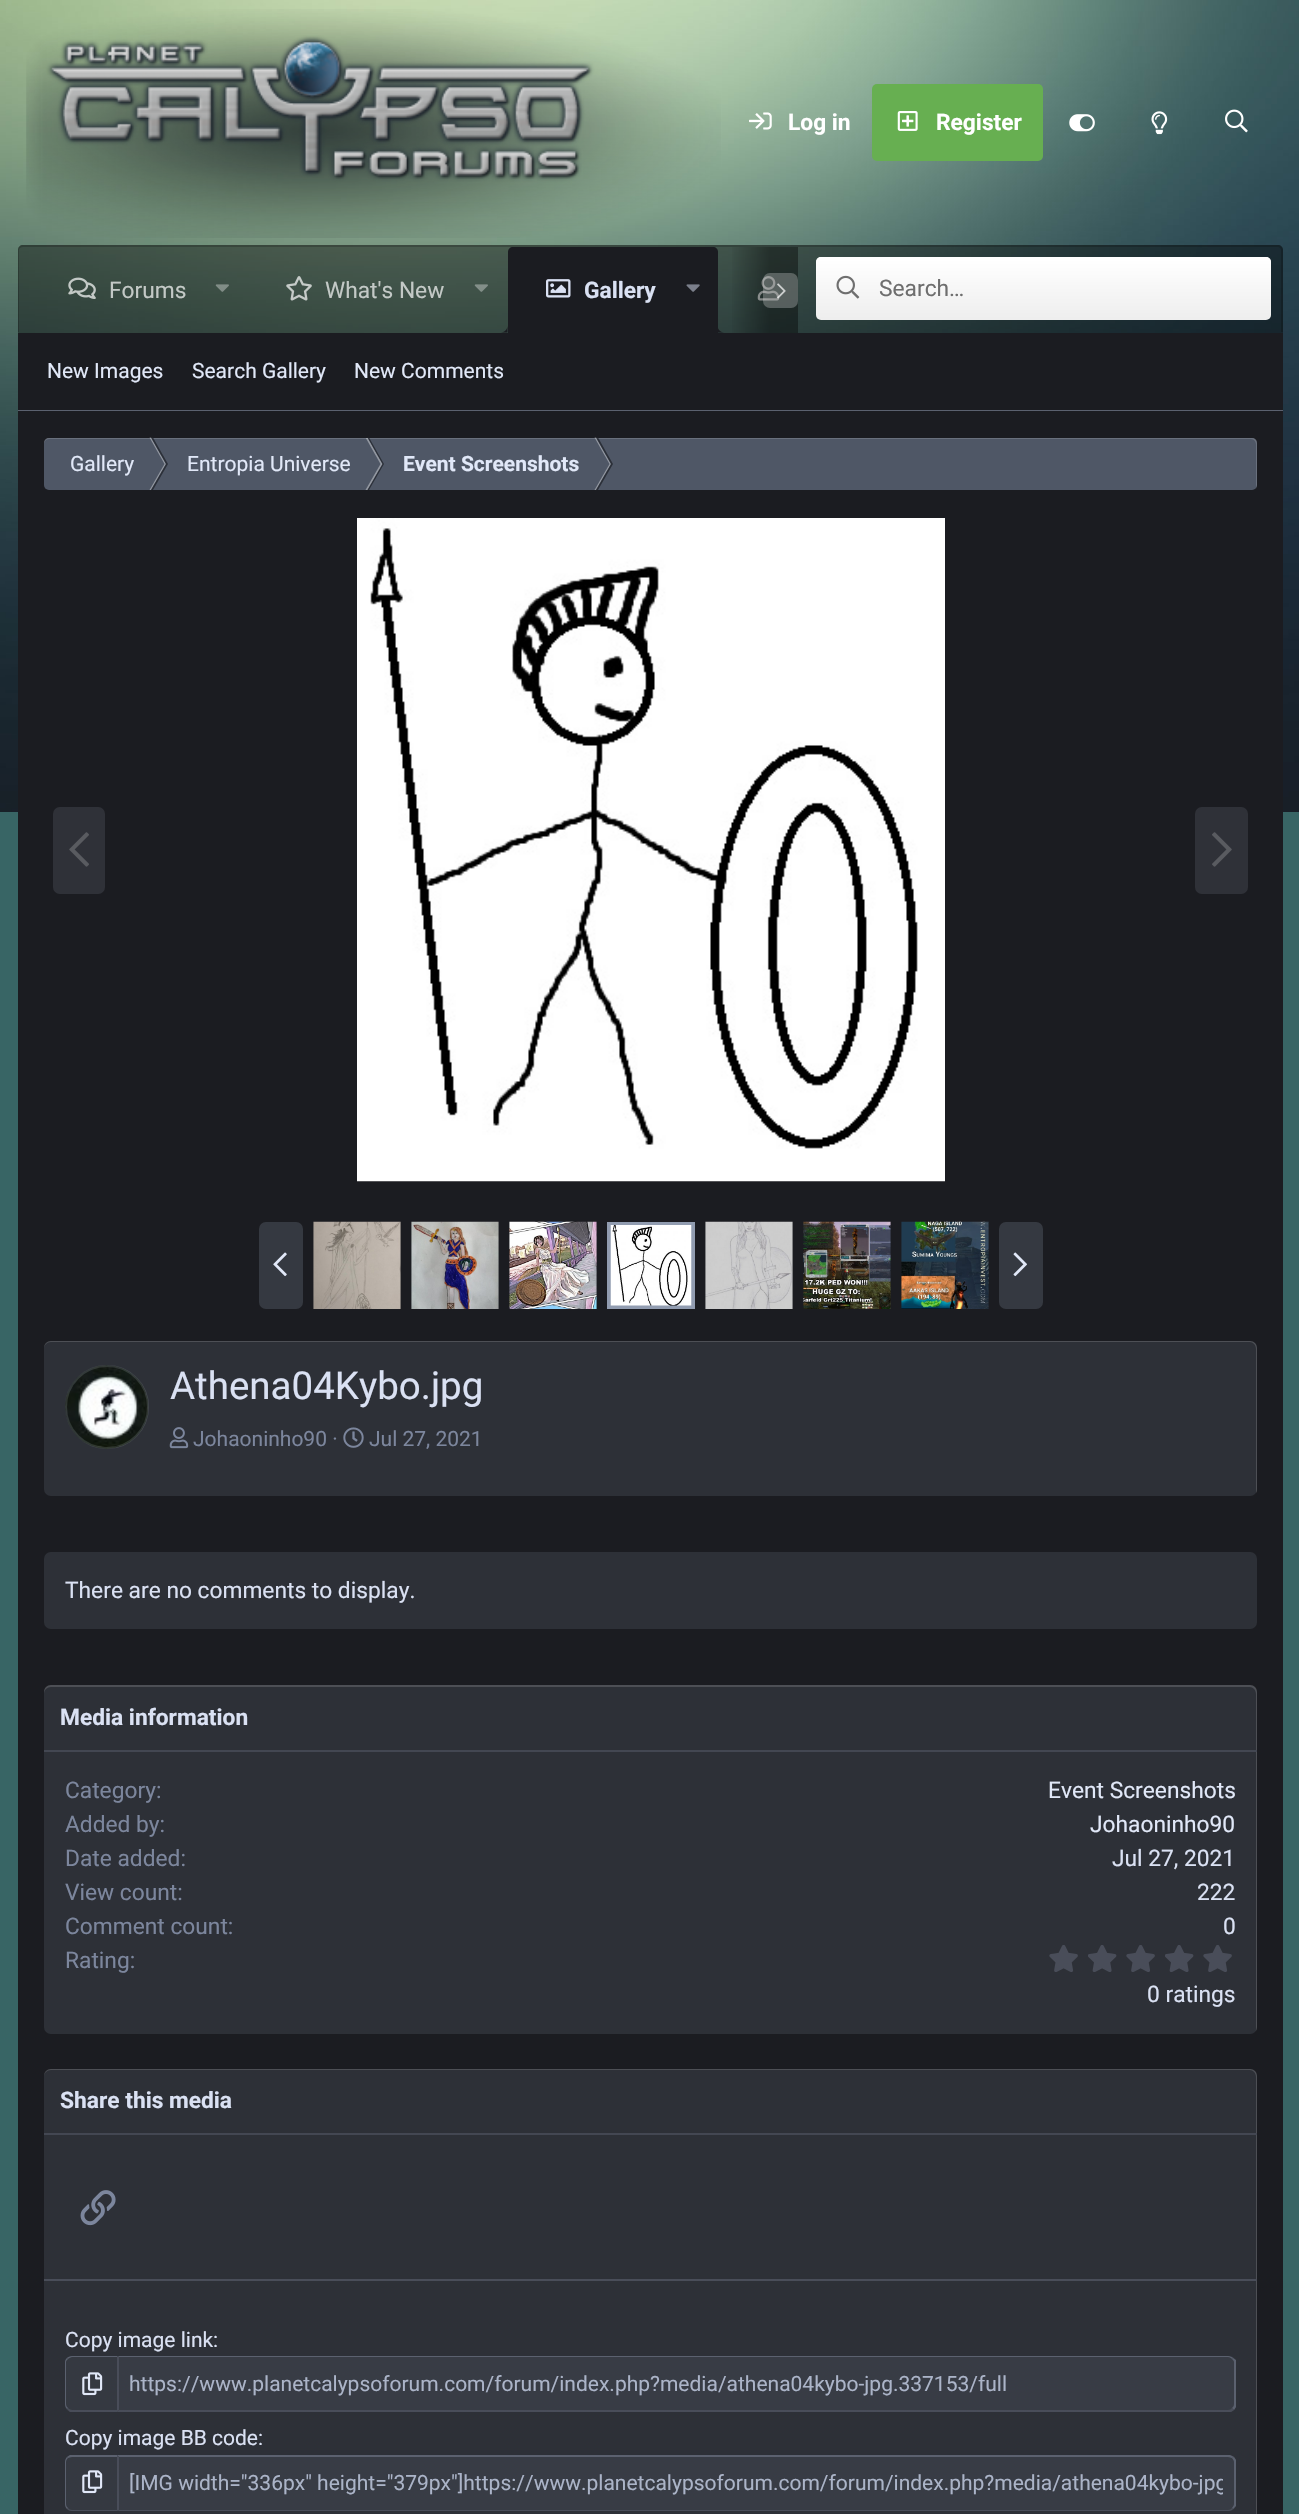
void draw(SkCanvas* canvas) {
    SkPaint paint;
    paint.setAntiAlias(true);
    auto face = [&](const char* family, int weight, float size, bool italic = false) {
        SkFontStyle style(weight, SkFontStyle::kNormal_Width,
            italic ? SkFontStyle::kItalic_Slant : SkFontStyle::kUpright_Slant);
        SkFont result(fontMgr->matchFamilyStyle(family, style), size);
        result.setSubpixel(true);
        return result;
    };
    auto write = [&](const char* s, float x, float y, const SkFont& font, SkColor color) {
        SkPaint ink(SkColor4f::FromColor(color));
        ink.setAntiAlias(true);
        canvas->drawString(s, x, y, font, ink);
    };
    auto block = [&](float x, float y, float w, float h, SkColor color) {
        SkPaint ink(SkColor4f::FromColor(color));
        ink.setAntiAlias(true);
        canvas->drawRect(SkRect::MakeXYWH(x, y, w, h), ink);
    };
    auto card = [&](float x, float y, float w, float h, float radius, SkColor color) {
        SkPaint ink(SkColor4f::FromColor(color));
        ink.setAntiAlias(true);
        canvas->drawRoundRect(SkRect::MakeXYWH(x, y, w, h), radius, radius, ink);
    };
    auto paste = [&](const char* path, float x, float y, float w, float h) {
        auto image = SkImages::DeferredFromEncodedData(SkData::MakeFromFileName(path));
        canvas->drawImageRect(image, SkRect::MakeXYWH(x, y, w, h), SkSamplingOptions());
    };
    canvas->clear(SkColorSetRGB(56, 101, 101));
    paste("pic1.png", 0, 0, 1299, 812);
    paste("pic2.png", 26, 9, 695, 229);
    paste("pic3.png", 749, 112, 23, 18);
    auto kFont1 = face("Roboto", 700, 22.75f);
    write("Log in", 788, 130, kFont1, SK_ColorWHITE);
    card(872, 84, 171, 77, 5, SkColorSetRGB(103, 175, 81));
    paste("pic4.png", 897, 111, 21, 20);
    write("Register", 936, 130, kFont1, SK_ColorWHITE);
    paste("pic5.png", 1069, 114, 26, 18);
    paste("pic6.png", 1151, 111, 17, 24);
    paste("pic7.png", 1225, 109, 23, 24);
    paint.setColor(SkColorSetARGB(102, 0, 0, 0));
    canvas->drawPath(SkPathBuilder().moveTo(23, 245).lineTo(1278, 245).cubicTo(1281, 245, 1283, 247, 1283, 250).lineTo(1283, 333).lineTo(18, 333).lineTo(18, 250).cubicTo(18, 247, 20, 245, 23, 245).close().detach(), paint);
    paint.setColor(SkColorSetARGB(51, 0, 0, 0));
    canvas->drawPath(SkPathBuilder(SkPathFillType::kEvenOdd).moveTo(23, 245).lineTo(1278, 245).cubicTo(1280, 245, 1283, 247, 1283, 250).lineTo(1283, 332).lineTo(18, 332).lineTo(18, 250).cubicTo(18, 247, 20, 245, 23, 245).close().moveTo(23, 247).lineTo(1278, 247).cubicTo(1279, 247, 1281, 248, 1281, 250).lineTo(1281, 332).lineTo(19, 332).lineTo(19, 250).cubicTo(19, 248, 21, 247, 23, 247).close().detach(), paint);
    paste("pic8.png", 68, 277, 28, 22);
    auto kFont2 = face("Roboto", 400, 22.75f);
    write("Forums", 109, 298, kFont2, SkColorSetRGB(195, 201, 198));
    paste("pic9.png", 215, 284, 14, 8);
    paste("pic10.png", 286, 276, 26, 25);
    write("What's New", 325, 298, kFont2, SkColorSetRGB(195, 201, 198));
    paste("pic11.png", 474, 284, 14, 8);
    paint.setColor(SkColorSetRGB(27, 28, 33));
    canvas->drawPath(SkPathBuilder().moveTo(513, 247).lineTo(713, 247).cubicTo(716, 247, 718, 249, 718, 252).lineTo(718, 333).lineTo(508, 333).lineTo(508, 252).cubicTo(508, 249, 510, 247, 513, 247).close().detach(), paint);
    paste("pic12.png", 546, 279, 25, 19);
    write("Gallery", 584, 298, kFont1, SkColorSetRGB(218, 225, 243));
    paste("pic13.png", 686, 284, 14, 8);
    paste("pic14.png", 501, 326, 7, 7);
    paste("pic15.png", 718, 328, 6, 5);
    paste("pic16.png", 757, 276, 23, 25);
    {
        const SkColor colors[] = {SkColorSetARGB(0, 0, 0, 0), SkColorSetARGB(102, 0, 0, 0)};
        const float stops[] = {0, 0.6f};
        const SkPoint ends[] = {{728, 290}, {798, 290}};
        paint.setShader(SkGradientShader::MakeLinear(ends, colors, stops, 2, SkTileMode::kClamp));
        paint.setAlpha(255);
    }
    canvas->drawRect(SkRect::MakeXYWH(732, 247, 66, 86), paint);
    card(763, 273, 35, 35, 7, SkColorSetARGB(64, 255, 255, 255));
    paste("pic17.png", 777, 283, 9, 16);
    card(816, 257, 455, 63, 5, SkColorSetRGB(238, 238, 238));
    {
        const SkColor colors[] = {SK_ColorWHITE, SkColorSetARGB(0, 255, 255, 255)};
        const float stops[] = {0, 1};
        const SkPoint ends[] = {{1043, 257}, {1043, 320}};
        paint.setShader(SkGradientShader::MakeLinear(ends, colors, stops, 2, SkTileMode::kClamp));
        paint.setAlpha(255);
    }
    canvas->drawRoundRect(SkRect::MakeXYWH(816, 257, 455, 63), 5, 5, paint);
    paste("pic18.png", 836, 275, 24, 24);
    write("Search…", 879, 296, kFont2, SkColorSetRGB(110, 110, 110));
    block(18, 333, 1265, 77, SkColorSetRGB(27, 28, 33));
    block(18, 410, 1265, 1, SkColorSetRGB(91, 97, 111));
    auto kFont3 = face("Roboto", 400, 21);
    write("New Images", 47, 378, kFont3, SkColorSetRGB(225, 232, 248));
    write("Search Gallery", 192, 378, kFont3, SkColorSetRGB(225, 232, 248));
    write("New Comments", 354, 378, kFont3, SkColorSetRGB(225, 232, 248));
    block(18, 411, 1265, 2103, SkColorSetRGB(27, 28, 33));
    card(44, 438, 1213, 52, 5, SkColorSetRGB(79, 87, 102));
    paint.setShader(nullptr);
    paint.setColor(SkColorSetARGB(38, 255, 255, 255));
    canvas->drawPath(SkPathBuilder().moveTo(49, 439).lineTo(1251, 439).cubicTo(1254, 439, 1256, 442, 1256, 444).lineTo(1256, 486).lineTo(1256, 489).cubicTo(1256, 488, 1257, 486, 1257, 485).lineTo(1257, 443).cubicTo(1257, 440, 1255, 438, 1252, 438).lineTo(49, 438).cubicTo(46, 438, 44, 440, 44, 443).lineTo(44, 444).cubicTo(44, 442, 46, 439, 49, 439).close().detach(), paint);
    write("Gallery", 70, 471, kFont3, SkColorSetRGB(225, 232, 248));
    paint.setColor(SkColorSetARGB(97, 255, 255, 255));
    canvas->drawPath(SkPathBuilder().moveTo(149.5f, 437.5f).lineTo(151, 437.5f).lineTo(166, 464).lineTo(164.5f, 464).close().detach(), paint);
    paint.setColor(SkColorSetARGB(204, 34, 38, 45));
    canvas->drawPath(SkPathBuilder().moveTo(151, 437.5f).lineTo(153, 437.5f).lineTo(168, 464).lineTo(166, 464).close().detach(), paint);
    paint.setColor(SkColorSetRGB(146, 151, 160));
    canvas->drawPath(SkPathBuilder().moveTo(164.5f, 464).lineTo(166, 464).lineTo(151, 490).lineTo(149.5f, 490).close().detach(), paint);
    paint.setColor(SkColorSetARGB(204, 34, 38, 45));
    canvas->drawPath(SkPathBuilder().moveTo(166, 464).lineTo(168, 464).lineTo(153, 490).lineTo(151, 490).close().detach(), paint);
    write("Entropia Universe", 187, 471, kFont3, SkColorSetRGB(225, 232, 248));
    canvas->save();
    canvas->clipRect(SkRect::MakeXYWH(44, 438, 1213, 52));
    paint.setColor(SkColorSetARGB(97, 255, 255, 255));
    canvas->drawPath(SkPathBuilder().moveTo(365.5f, 437.5f).lineTo(367.5f, 437.5f).lineTo(382.5f, 464).lineTo(380.5f, 464).close().detach(), paint);
    canvas->restore();
    paint.setColor(SkColorSetARGB(204, 34, 38, 45));
    canvas->drawPath(SkPathBuilder().moveTo(367.5f, 437.5f).lineTo(369, 437.5f).lineTo(384, 464).lineTo(382.5f, 464).close().detach(), paint);
    paint.setColor(SkColorSetRGB(146, 151, 160));
    canvas->drawPath(SkPathBuilder().moveTo(380.5f, 464).lineTo(382.5f, 464).lineTo(367.5f, 490).lineTo(365.5f, 490).close().detach(), paint);
    paint.setColor(SkColorSetARGB(204, 34, 38, 45));
    canvas->drawPath(SkPathBuilder().moveTo(382.5f, 464).lineTo(384, 464).lineTo(369, 490).lineTo(367.5f, 490).close().detach(), paint);
    auto kFont4 = face("Roboto", 700, 21);
    write("Event Screenshots", 403, 471, kFont4, SkColorSetRGB(225, 232, 248));
    paint.setColor(SkColorSetARGB(97, 255, 255, 255));
    canvas->drawPath(SkPathBuilder().moveTo(594.5f, 437.5f).lineTo(596, 437.5f).lineTo(611, 464).lineTo(609.5f, 464).close().detach(), paint);
    paint.setColor(SkColorSetARGB(204, 34, 38, 45));
    canvas->drawPath(SkPathBuilder().moveTo(596, 437.5f).lineTo(598, 437.5f).lineTo(613, 464).lineTo(611, 464).close().detach(), paint);
    paint.setColor(SkColorSetRGB(146, 151, 160));
    canvas->drawPath(SkPathBuilder().moveTo(609.5f, 464).lineTo(611, 464).lineTo(596, 490).lineTo(594.5f, 490).close().detach(), paint);
    paint.setColor(SkColorSetARGB(204, 34, 38, 45));
    canvas->drawPath(SkPathBuilder().moveTo(611, 464).lineTo(613, 464).lineTo(598, 490).lineTo(596, 490).close().detach(), paint);
    card(53, 807, 52, 87, 7, SkColorSetRGB(47, 49, 56));
    paste("pic19.png", 69, 832, 20, 35);
    paste("pic20.png", 357, 518, 588, 664);
    card(1195, 807, 53, 87, 7, SkColorSetRGB(47, 49, 56));
    paste("pic21.png", 1212, 832, 20, 35);
    card(259, 1222, 44, 87, 7, SkColorSetRGB(53, 57, 65));
    paste("pic22.png", 273, 1252, 14, 25);
    paste("pic23.png", 313, 1221, 88, 88);
    paste("pic24.png", 411, 1221, 88, 88);
    paste("pic25.png", 509, 1221, 88, 88);
    paint.setStyle(SkPaint::kStroke_Style);
    paint.setStrokeWidth(4);
    paint.setColor(SkColorSetRGB(145, 156, 176));
    canvas->drawRect(SkRect::MakeXYWH(609, 1224, 84, 83), paint);
    paste("pic26.png", 610, 1225, 82, 81);
    paste("pic27.png", 705, 1221, 88, 88);
    paste("pic28.png", 803, 1221, 88, 88);
    paste("pic29.png", 901, 1221, 88, 88);
    card(999, 1222, 44, 87, 7, SkColorSetRGB(53, 57, 65));
    paste("pic30.png", 1013, 1252, 14, 25);
    card(44, 1341, 1213, 155, 7, SkColorSetRGB(45, 48, 55));
    paint.setStyle(SkPaint::kFill_Style);
    paint.setColor(SkColorSetARGB(38, 255, 255, 255));
    canvas->drawPath(SkPathBuilder().moveTo(51, 1342).lineTo(1250, 1342).cubicTo(1253, 1342, 1256, 1345, 1256, 1349).lineTo(1256, 1493).cubicTo(1257, 1492, 1257, 1490, 1257, 1489).lineTo(1257, 1348).cubicTo(1257, 1344, 1254, 1341, 1250, 1341).lineTo(51, 1341).cubicTo(47, 1341, 44, 1344, 44, 1348).lineTo(44, 1349).cubicTo(44, 1345, 47, 1342, 51, 1342).close().detach(), paint);
    paste("pic31.png", 65, 1365, 84, 84);
    paint.setStyle(SkPaint::kStroke_Style);
    paint.setStrokeWidth(2);
    paint.setColor(SkColorSetARGB(38, 218, 225, 243));
    canvas->drawCircle(107, 1407, 41, paint);
    auto kFont5 = face("Roboto", 400, 38.5f);
    write("Athena04Kybo.jpg", 170, 1399, kFont5, SkColorSetRGB(218, 225, 243));
    paste("pic32.png", 169, 1427, 20, 22);
    write("Johaoninho90 ·", 193, 1446, kFont3, SkColorSetRGB(124, 134, 157));
    paste("pic33.png", 343, 1427, 21, 21);
    write("Jul 27, 2021", 369, 1446, kFont3, SkColorSetRGB(124, 134, 157));
    card(44, 1552, 1213, 77, 7, SkColorSetRGB(45, 48, 55));
    write("There are no comments to display.", 65, 1598, kFont2, SkColorSetRGB(218, 225, 243));
    card(44, 1685, 1213, 349, 7, SkColorSetRGB(45, 48, 55));
    paint.setStyle(SkPaint::kFill_Style);
    paint.setColor(SkColorSetARGB(38, 255, 255, 255));
    canvas->drawPath(SkPathBuilder().moveTo(51, 1687).lineTo(1250, 1687).cubicTo(1253, 1687, 1256, 1690, 1256, 1694).lineTo(1256, 2028).cubicTo(1256, 2030, 1256, 2031, 1255, 2032).cubicTo(1256, 2031, 1257, 2029, 1257, 2027).lineTo(1257, 1692).cubicTo(1257, 1688, 1254, 1685, 1250, 1685).lineTo(51, 1685).cubicTo(47, 1685, 44, 1688, 44, 1692).lineTo(44, 1694).cubicTo(44, 1690, 47, 1687, 51, 1687).close().detach(), paint);
    block(44, 1750, 1213, 2, SkColorSetRGB(67, 71, 82));
    write("Media information", 60, 1725, kFont1, SkColorSetRGB(218, 225, 243));
    write("Category:", 65, 1798, kFont2, SkColorSetRGB(124, 134, 157));
    write("Event Screenshots", 1048, 1798, kFont2, SkColorSetRGB(225, 232, 248));
    write("Added by:", 65, 1832, kFont2, SkColorSetRGB(124, 134, 157));
    write("Johaoninho90", 1090, 1832, kFont2, SkColorSetRGB(225, 232, 248));
    write("Date added:", 65, 1866, kFont2, SkColorSetRGB(124, 134, 157));
    write("Jul 27, 2021", 1112, 1866, kFont2, SkColorSetRGB(218, 225, 243));
    write("View count:", 65, 1900, kFont2, SkColorSetRGB(124, 134, 157));
    write("222", 1197, 1900, kFont2, SkColorSetRGB(218, 225, 243));
    write("Comment count:", 65, 1934, kFont2, SkColorSetRGB(124, 134, 157));
    write("0", 1223, 1934, kFont2, SkColorSetRGB(218, 225, 243));
    write("Rating:", 65, 1968, kFont2, SkColorSetRGB(124, 134, 157));
    paste("pic34.png", 1049, 1945, 29, 27);
    paste("pic35.png", 1088, 1945, 29, 27);
    paste("pic34.png", 1126, 1945, 29, 27);
    paste("pic35.png", 1165, 1945, 29, 27);
    paste("pic34.png", 1203, 1945, 29, 27);
    write("0 ratings", 1147, 2002, kFont2, SkColorSetRGB(218, 225, 243));
    card(44, 2069, 1213, 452, 7, SkColorSetRGB(45, 48, 55));
    canvas->drawPath(SkPathBuilder().moveTo(51, 2070).lineTo(1250, 2070).cubicTo(1253, 2070, 1256, 2073, 1256, 2077).lineTo(1256, 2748).cubicTo(1257, 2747, 1257, 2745, 1257, 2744).lineTo(1257, 2076).cubicTo(1257, 2072, 1254, 2069, 1250, 2069).lineTo(51, 2069).cubicTo(47, 2069, 44, 2072, 44, 2076).lineTo(44, 2077).cubicTo(44, 2073, 47, 2070, 51, 2070).close().detach(), paint);
    block(44, 2133, 1213, 2, SkColorSetRGB(67, 71, 82));
    write("Share this media", 60, 2108, kFont1, SkColorSetRGB(218, 225, 243));
    paste("pic36.png", 80, 2190, 36, 36);
    block(44, 2279, 1213, 2, SkColorSetRGB(73, 77, 89));
    write("Copy image link:", 65, 2347, kFont3, SkColorSetRGB(218, 225, 243));
    paint.setColor(SkColorSetRGB(53, 57, 65));
    canvas->drawPath(SkPathBuilder().moveTo(72, 2356).lineTo(117, 2356).lineTo(117, 2412).lineTo(72, 2412).cubicTo(68, 2412, 65, 2409, 65, 2405).lineTo(65, 2363).cubicTo(65, 2359, 68, 2356, 72, 2356).close().detach(), paint);
    paint.setColor(SkColorSetRGB(91, 97, 111));
    canvas->drawPath(SkPathBuilder().moveTo(72, 2356).lineTo(117, 2356).lineTo(117, 2357).lineTo(72, 2357).cubicTo(71, 2357, 69, 2358, 68, 2359).lineTo(67, 2358).cubicTo(68, 2357, 70, 2356, 72, 2356).close().detach(), paint);
    paint.setColor(SkColorSetRGB(73, 77, 89));
    canvas->drawPath(SkPathBuilder().moveTo(70, 2412).lineTo(67, 2409).lineTo(68, 2408).cubicTo(69, 2409, 71, 2410, 72, 2410).lineTo(117, 2410).lineTo(117, 2412).close().detach(), paint);
    paint.setColor(SkColorSetRGB(91, 97, 111));
    canvas->drawPath(SkPathBuilder().moveTo(68, 2408).lineTo(67, 2409).cubicTo(66, 2408, 65, 2406, 65, 2404).lineTo(65, 2362).cubicTo(65, 2360, 66, 2359, 67, 2358).lineTo(68, 2359).cubicTo(67, 2360, 66, 2361, 66, 2362).lineTo(66, 2404).cubicTo(66, 2406, 67, 2407, 68, 2408).close().detach(), paint);
    paste("pic37.png", 82, 2372, 21, 24);
    paint.setColor(SkColorSetRGB(56, 60, 69));
    canvas->drawPath(SkPathBuilder().moveTo(117, 2356).lineTo(1229, 2356).cubicTo(1233, 2356, 1236, 2359, 1236, 2363).lineTo(1236, 2405).cubicTo(1236, 2409, 1233, 2412, 1229, 2412).lineTo(117, 2412).close().detach(), paint);
    paint.setColor(SkColorSetRGB(91, 97, 111));
    canvas->drawPath(SkPathBuilder().moveTo(119, 2357).lineTo(1228, 2357).cubicTo(1230, 2357, 1231, 2358, 1232, 2359).lineTo(1233, 2358).cubicTo(1232, 2357, 1230, 2356, 1228, 2356).lineTo(118, 2356).close().detach(), paint);
    canvas->drawPath(SkPathBuilder().moveTo(1233, 2358).lineTo(1236, 2360).lineTo(1236, 2407).lineTo(1234, 2410).lineTo(1232, 2408).cubicTo(1233, 2407, 1234, 2406, 1234, 2404).lineTo(1234, 2362).cubicTo(1234, 2361, 1233, 2360, 1232, 2359).close().detach(), paint);
    paint.setColor(SkColorSetRGB(73, 77, 89));
    canvas->drawPath(SkPathBuilder().moveTo(1234, 2410).lineTo(1231, 2412).lineTo(117, 2412).lineTo(119, 2410).lineTo(1228, 2410).cubicTo(1230, 2410, 1231, 2409, 1232, 2408).close().detach(), paint);
    canvas->drawPath(SkPathBuilder().moveTo(117, 2412).lineTo(119, 2410).lineTo(119, 2357).lineTo(117, 2356).close().detach(), paint);
    write("https://www.planetcalypsoforum.com/forum/index.php?media/athena04kybo-jpg.337153/full", 129, 2391, kFont3, SkColorSetRGB(171, 180, 200));
    write("Copy image BB code:", 65, 2445, kFont3, SkColorSetRGB(218, 225, 243));
    paint.setColor(SkColorSetRGB(53, 57, 65));
    canvas->drawPath(SkPathBuilder().moveTo(72, 2455).lineTo(117, 2455).lineTo(117, 2511).lineTo(72, 2511).cubicTo(68, 2511, 65, 2508, 65, 2504).lineTo(65, 2462).cubicTo(65, 2458, 68, 2455, 72, 2455).close().detach(), paint);
    paint.setColor(SkColorSetRGB(91, 97, 111));
    canvas->drawPath(SkPathBuilder().moveTo(72, 2457).cubicTo(70, 2457, 69, 2458, 68, 2458).lineTo(67, 2457).lineTo(70, 2455).lineTo(117, 2455).lineTo(117, 2457).close().detach(), paint);
    paint.setColor(SkColorSetRGB(73, 77, 89));
    canvas->drawPath(SkPathBuilder().moveTo(68, 2508).lineTo(67, 2509).cubicTo(68, 2510, 70, 2511, 72, 2511).lineTo(117, 2511).lineTo(117, 2510).lineTo(72, 2510).cubicTo(70, 2510, 69, 2509, 68, 2508).close().detach(), paint);
    paint.setColor(SkColorSetRGB(91, 97, 111));
    canvas->drawPath(SkPathBuilder().moveTo(67, 2509).cubicTo(66, 2508, 65, 2506, 65, 2504).lineTo(65, 2462).cubicTo(65, 2460, 66, 2458, 67, 2457).lineTo(68, 2458).cubicTo(67, 2459, 66, 2460, 66, 2462).lineTo(66, 2504).cubicTo(66, 2506, 67, 2507, 68, 2508).close().detach(), paint);
    paste("pic37.png", 82, 2470, 21, 24);
    paint.setColor(SkColorSetRGB(56, 60, 69));
    canvas->drawPath(SkPathBuilder().moveTo(117, 2455).lineTo(1229, 2455).cubicTo(1233, 2455, 1236, 2458, 1236, 2462).lineTo(1236, 2504).cubicTo(1236, 2508, 1233, 2511, 1229, 2511).lineTo(117, 2511).close().detach(), paint);
    paint.setColor(SkColorSetRGB(91, 97, 111));
    canvas->drawPath(SkPathBuilder().moveTo(119, 2457).lineTo(117, 2455).lineTo(1230, 2455).lineTo(1234, 2457).lineTo(1232, 2458).cubicTo(1231, 2458, 1230, 2457, 1228, 2457).close().detach(), paint);
    canvas->drawPath(SkPathBuilder().moveTo(1236, 2506).lineTo(1233, 2509).lineTo(1232, 2508).cubicTo(1233, 2507, 1234, 2505, 1234, 2504).lineTo(1234, 2462).cubicTo(1234, 2461, 1233, 2459, 1232, 2458).lineTo(1234, 2457).lineTo(1236, 2460).close().detach(), paint);
    paint.setColor(SkColorSetRGB(73, 77, 89));
    canvas->drawPath(SkPathBuilder().moveTo(1233, 2509).cubicTo(1232, 2510, 1230, 2511, 1228, 2511).lineTo(118, 2511).lineTo(119, 2510).lineTo(1228, 2510).cubicTo(1230, 2510, 1231, 2509, 1232, 2508).close().detach(), paint);
    canvas->drawPath(SkPathBuilder().moveTo(119, 2457).lineTo(119, 2510).lineTo(117, 2511).lineTo(117, 2455).close().detach(), paint);
    canvas->save();
    canvas->clipRect(SkRect::MakeXYWH(130, 2468, 1093, 31));
    write("[IMG width=\"336px\" height=\"379px\"]https://www.planetcalypsoforum.com/forum/index.php?media/athena04kybo-jpg", 129, 2490, kFont3, SkColorSetRGB(171, 180, 200));
    canvas->restore();
}
